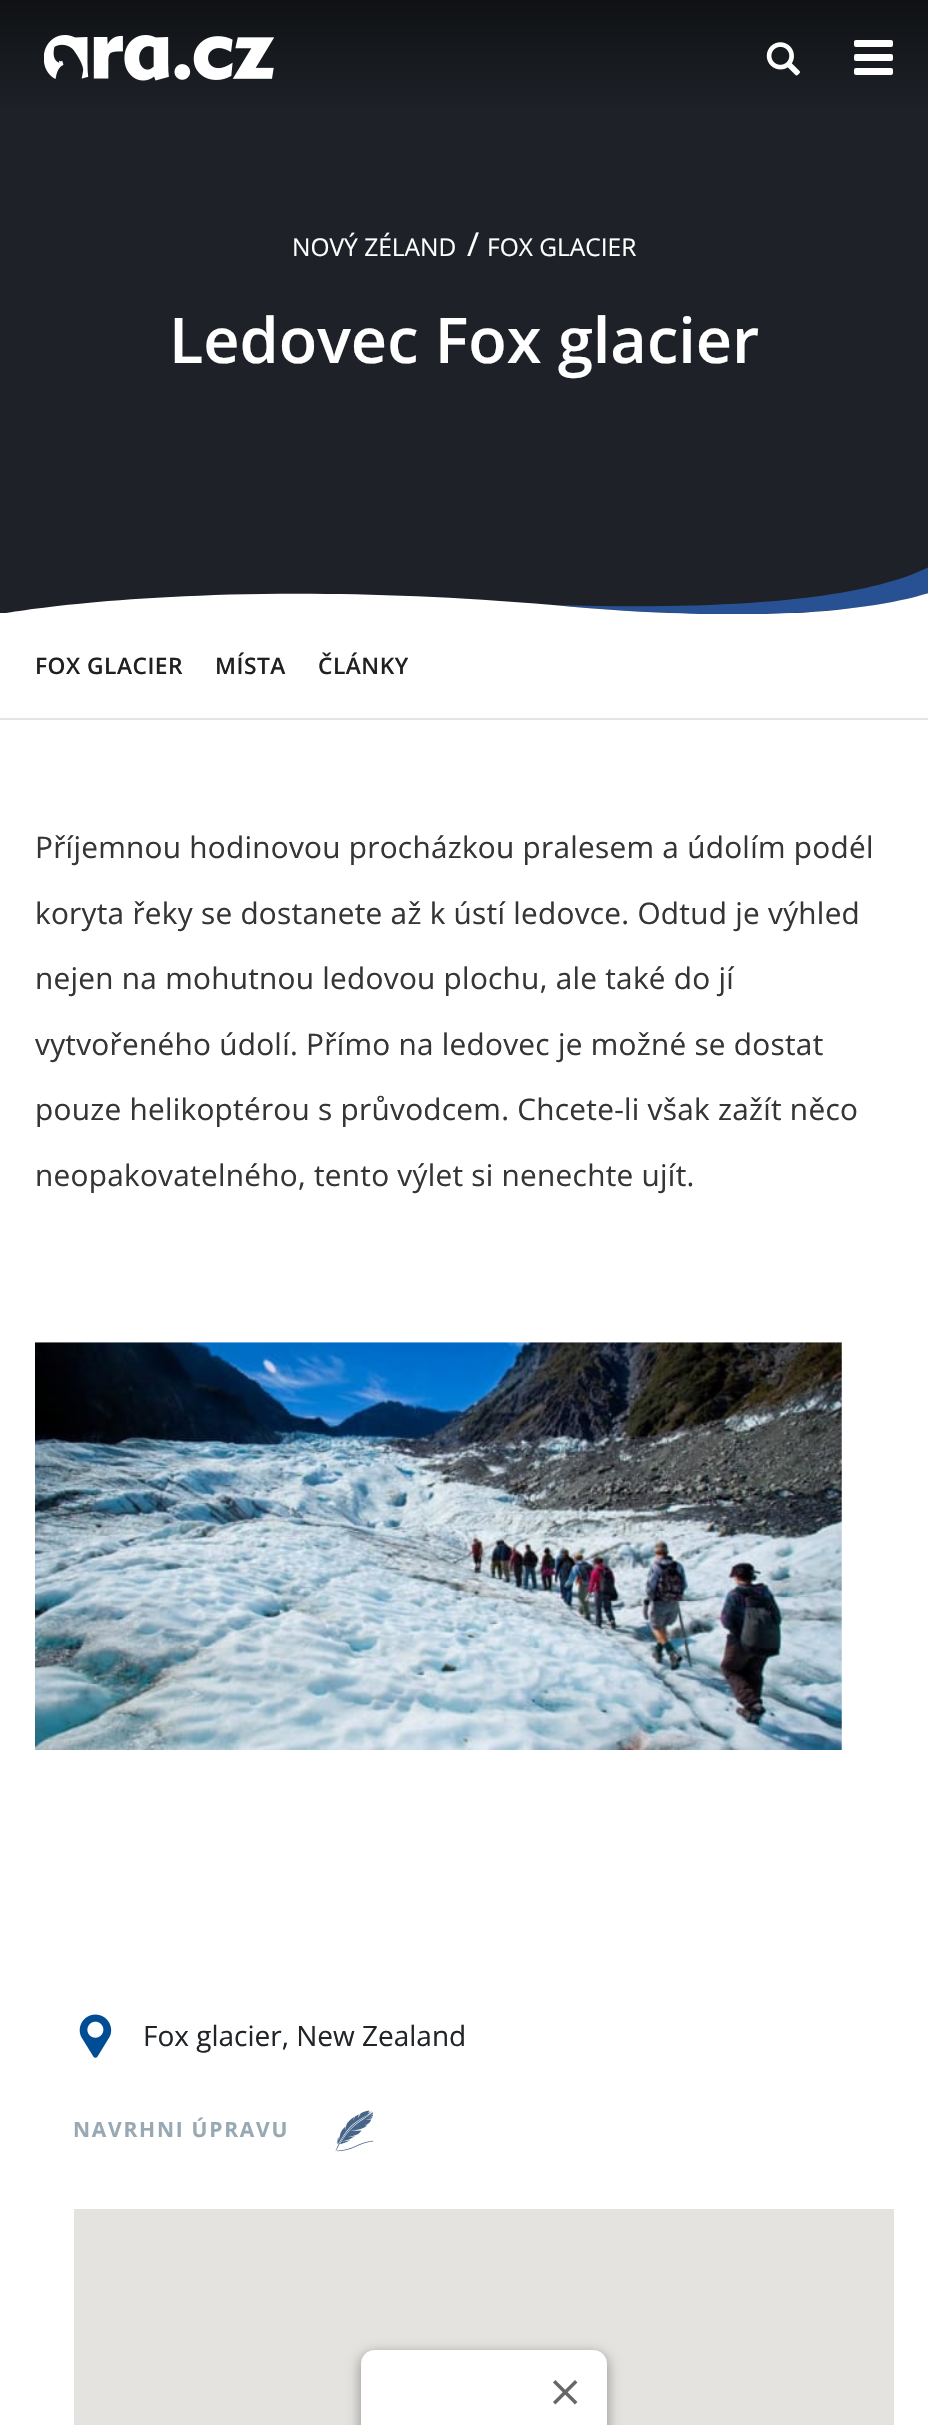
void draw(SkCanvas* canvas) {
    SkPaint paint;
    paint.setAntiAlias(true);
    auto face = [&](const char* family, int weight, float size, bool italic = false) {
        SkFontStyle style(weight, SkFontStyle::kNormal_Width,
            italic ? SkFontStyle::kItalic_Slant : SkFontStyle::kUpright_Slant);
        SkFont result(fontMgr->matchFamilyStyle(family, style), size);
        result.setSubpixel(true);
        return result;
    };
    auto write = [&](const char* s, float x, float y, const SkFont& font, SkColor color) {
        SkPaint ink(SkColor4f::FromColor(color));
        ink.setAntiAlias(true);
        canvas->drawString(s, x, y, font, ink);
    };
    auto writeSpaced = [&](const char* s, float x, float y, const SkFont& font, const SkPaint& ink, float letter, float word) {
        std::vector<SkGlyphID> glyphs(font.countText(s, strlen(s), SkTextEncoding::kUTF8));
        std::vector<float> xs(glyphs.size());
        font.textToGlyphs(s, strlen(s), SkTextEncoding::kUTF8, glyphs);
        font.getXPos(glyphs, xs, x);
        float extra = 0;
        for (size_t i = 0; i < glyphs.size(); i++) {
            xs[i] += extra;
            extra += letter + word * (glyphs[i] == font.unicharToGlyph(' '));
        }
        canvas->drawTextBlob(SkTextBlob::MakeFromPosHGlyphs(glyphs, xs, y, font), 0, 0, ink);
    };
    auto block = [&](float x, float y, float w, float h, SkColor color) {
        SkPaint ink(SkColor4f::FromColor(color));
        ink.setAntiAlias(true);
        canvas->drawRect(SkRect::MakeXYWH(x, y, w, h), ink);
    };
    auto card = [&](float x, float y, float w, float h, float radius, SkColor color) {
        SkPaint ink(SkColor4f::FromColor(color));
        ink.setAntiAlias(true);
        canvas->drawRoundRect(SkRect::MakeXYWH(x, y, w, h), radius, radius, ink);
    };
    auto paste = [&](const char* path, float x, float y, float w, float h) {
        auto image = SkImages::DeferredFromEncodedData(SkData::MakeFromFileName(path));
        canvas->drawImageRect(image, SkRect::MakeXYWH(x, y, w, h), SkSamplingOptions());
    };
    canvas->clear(SK_ColorWHITE);
    {
        const SkColor colors[] = {SkColorSetRGB(15, 17, 20), SkColorSetRGB(30, 34, 40)};
        const float stops[] = {0, 1};
        const SkPoint ends[] = {{465, 0}, {465, 114}};
        paint.setShader(SkGradientShader::MakeLinear(ends, colors, stops, 2, SkTileMode::kClamp));
        paint.setAlpha(255);
    }
    canvas->drawRect(SkRect::MakeXYWH(0, 0, 928, 114), paint);
    paste("pic1.png", 44, 35, 231, 46);
    paste("pic2.png", 766, 42, 34, 34);
    card(854, 40, 39, 7, 2, SK_ColorWHITE);
    card(854, 54, 39, 7, 2, SK_ColorWHITE);
    card(854, 68, 39, 7, 2, SK_ColorWHITE);
    block(0, 114, 928, 499, SkColorSetRGB(30, 34, 40));
    canvas->save();
    canvas->clipRect(SkRect::MakeXYWH(0, 567, 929, 47));
    paint.setShader(nullptr);
    paint.setColor(SkColorSetRGB(40, 81, 148));
    canvas->drawPath(SkPathBuilder().moveTo(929, 567).lineTo(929, 593).cubicTo(866, 613, 742, 623, 553, 605).cubicTo(789, 612, 885, 589, 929, 567).close().detach(), paint);
    paint.setColor(SK_ColorWHITE);
    canvas->drawPath(SkPathBuilder().moveTo(0, 614).lineTo(0, 615).lineTo(723, 615).cubicTo(674, 614, 617, 611, 553, 605).cubicTo(206, 575, 0, 614, 0, 614).close().detach(), paint);
    canvas->drawPath(SkPathBuilder().moveTo(741, 615).lineTo(723, 615).lineTo(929, 615).lineTo(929, 593).cubicTo(890, 605, 828, 614, 741, 615).close().detach(), paint);
    canvas->restore();
    auto kFont1 = face("Open Sans", 400, 24.5f);
    write("NOVÝ ZÉLAND", 292, 256, kFont1, SK_ColorWHITE);
    auto kFont2 = face("Open Sans", 400, 33);
    write("/", 467, 256, kFont2, SK_ColorWHITE);
    write("FOX GLACIER", 487, 256, kFont1, SK_ColorWHITE);
    auto kFont3 = face("Open Sans", 600, 63);
    write("Ledovec Fox glacier", 169, 363, kFont3, SK_ColorWHITE);
    auto kFont4 = face("Open Sans", 400, 29.75f);
    paint.setColor(SkColorSetRGB(53, 53, 53));
    writeSpaced("Příjemnou hodinovou procházkou pralesem a údolím podél", 35, 858, kFont4, paint, 0.28f, 0);
    writeSpaced("koryta řeky se dostanete až k ústí ledovce. Odtud je výhled", 35, 924, kFont4, paint, 0.28f, 0);
    writeSpaced("nejen na mohutnou ledovou plochu, ale také do jí", 35, 989, kFont4, paint, 0.28f, 0);
    writeSpaced("vytvořeného údolí. Přímo na ledovec je možné se dostat", 35, 1055, kFont4, paint, 0.28f, 0);
    writeSpaced("pouze helikoptérou s průvodcem. Chcete-li však zažít něco", 35, 1120, kFont4, paint, 0.28f, 0);
    writeSpaced("neopakovatelného, tento výlet si nenechte ujít.", 35, 1186, kFont4, paint, 0.28f, 0);
    paste("pic3.png", 35, 1342, 807, 408);
    paste("pic4.png", 79, 2014, 33, 44);
    auto kFont5 = face("Open Sans", 400, 28);
    write("Fox glacier, New Zealand", 143, 2046, kFont5, SkColorSetRGB(33, 37, 41));
    auto kFont6 = face("Open Sans", 700, 21);
    paint.setColor(SkColorSetRGB(153, 169, 179));
    writeSpaced("NAVRHNI ÚPRAVU", 73, 2137, kFont6, paint, 1.75f, 0);
    paste("pic5.png", 335, 2110, 39, 42);
    block(74, 2209, 820, 216, SkColorSetRGB(229, 227, 223));
    paint.setColor(SkColorSetARGB(77, 0, 0, 0));
    paint.setMaskFilter(SkMaskFilter::MakeBlur(kNormal_SkBlurStyle, 6));
    canvas->drawRoundRect(SkRect::MakeXYWH(359, 2352, 250, 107), 16, 16, paint);
    paint.setMaskFilter(nullptr);
    card(361, 2350, 246, 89, 14, SK_ColorWHITE);
    paste("pic6.png", 553, 2380, 25, 25);
    block(0, 718, 928, 2, SkColorSetRGB(228, 228, 228));
    auto kFont7 = face("Open Sans", 600, 22.75f);
    paint.setColor(SkColorSetRGB(32, 32, 32));
    writeSpaced("FOX GLACIER", 35, 674, kFont7, paint, 0.5f, 0);
    writeSpaced("MÍSTA", 215, 674, kFont7, paint, 0.5f, 0);
    writeSpaced("ČLÁNKY", 318, 674, kFont7, paint, 0.5f, 0);
}
